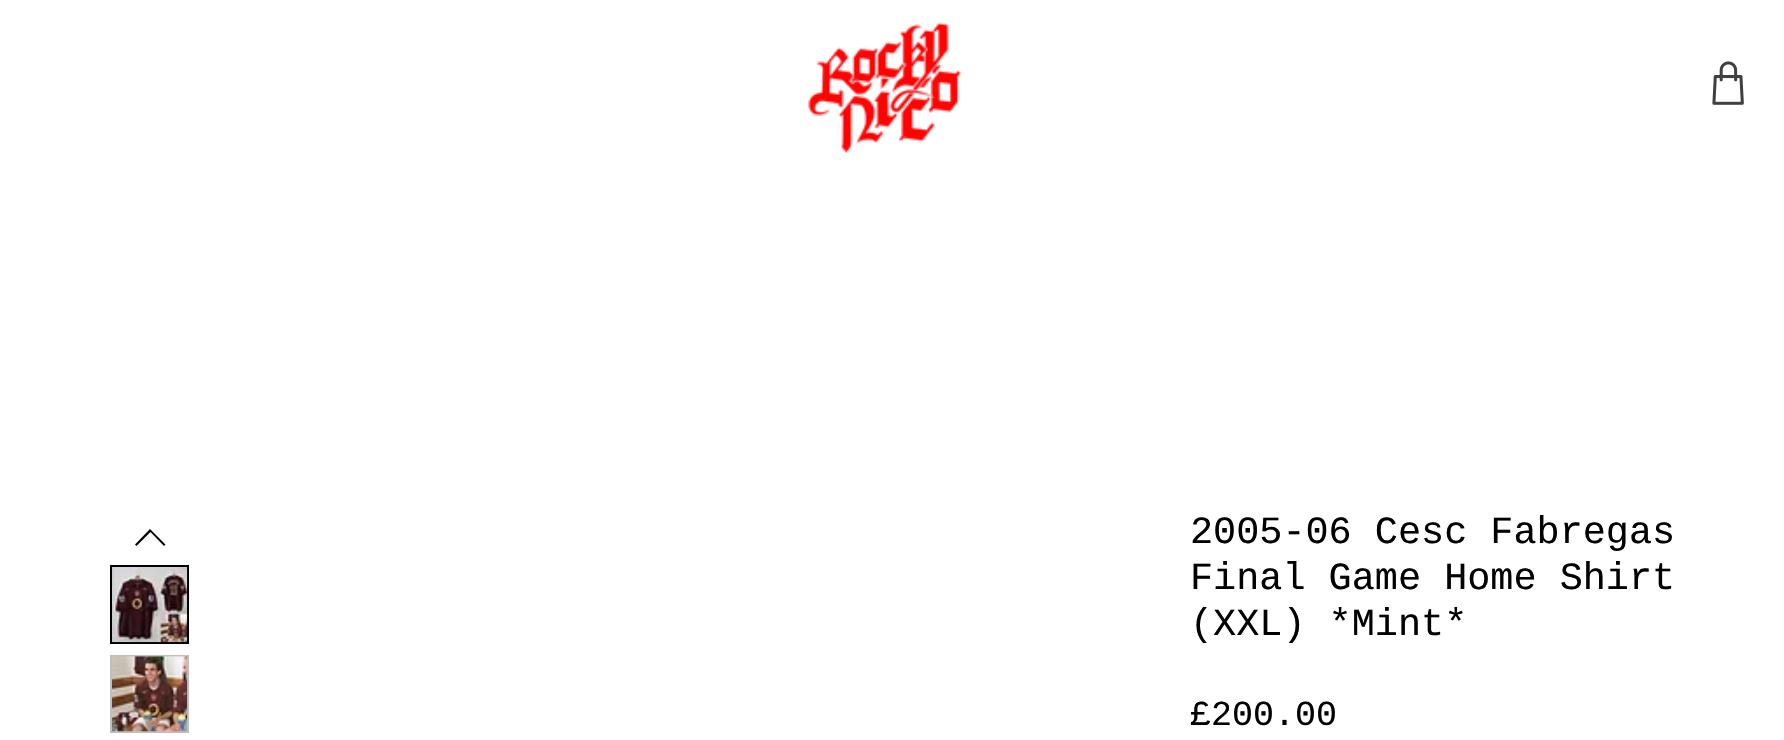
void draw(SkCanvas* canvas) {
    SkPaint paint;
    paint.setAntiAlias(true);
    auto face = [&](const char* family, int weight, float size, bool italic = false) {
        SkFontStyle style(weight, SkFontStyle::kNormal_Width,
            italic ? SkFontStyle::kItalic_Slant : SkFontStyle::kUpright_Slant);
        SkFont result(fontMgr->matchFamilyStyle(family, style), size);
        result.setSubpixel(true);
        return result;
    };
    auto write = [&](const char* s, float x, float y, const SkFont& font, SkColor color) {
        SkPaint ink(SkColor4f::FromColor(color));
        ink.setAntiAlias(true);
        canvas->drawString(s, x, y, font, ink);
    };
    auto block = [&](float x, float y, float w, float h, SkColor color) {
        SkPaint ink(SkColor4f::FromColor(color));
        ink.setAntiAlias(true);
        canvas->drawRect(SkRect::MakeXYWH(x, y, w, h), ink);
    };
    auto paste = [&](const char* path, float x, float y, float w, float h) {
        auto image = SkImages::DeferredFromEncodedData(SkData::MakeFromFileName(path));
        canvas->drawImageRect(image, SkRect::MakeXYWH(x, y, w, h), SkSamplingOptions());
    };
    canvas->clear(SK_ColorWHITE);
    paste("pic1.png", 808, 22, 154, 131);
    paste("pic2.png", 1712, 61, 32, 44);
    paint.setColor(SK_ColorBLACK);
    canvas->drawPath(SkPathBuilder(SkPathFillType::kEvenOdd).moveTo(150, 529).lineTo(165.5f, 544.5f).lineTo(164, 546).lineTo(150.5f, 532).lineTo(136.5f, 546).lineTo(135, 544.5f).close().detach(), paint);
    paint.setStyle(SkPaint::kStroke_Style);
    paint.setStrokeWidth(2);
    canvas->drawRect(SkRect::MakeXYWH(111, 566, 77, 77), paint);
    paste("pic3.png", 112, 567, 76, 76);
    block(110, 655, 79, 78, SkColorSetRGB(191, 191, 191));
    paste("pic4.png", 112, 656, 76, 76);
    auto kFont1 = face("Liberation Mono", 400, 38.5f);
    write("2005-06 Cesc Fabregas", 1190, 543, kFont1, SK_ColorBLACK);
    write("Final Game Home Shirt", 1190, 589, kFont1, SK_ColorBLACK);
    write("(XXL) *Mint*", 1190, 635, kFont1, SK_ColorBLACK);
    auto kFont2 = face("Liberation Mono", 400, 35);
    write("£200.00", 1190, 725, kFont2, SK_ColorBLACK);
}
